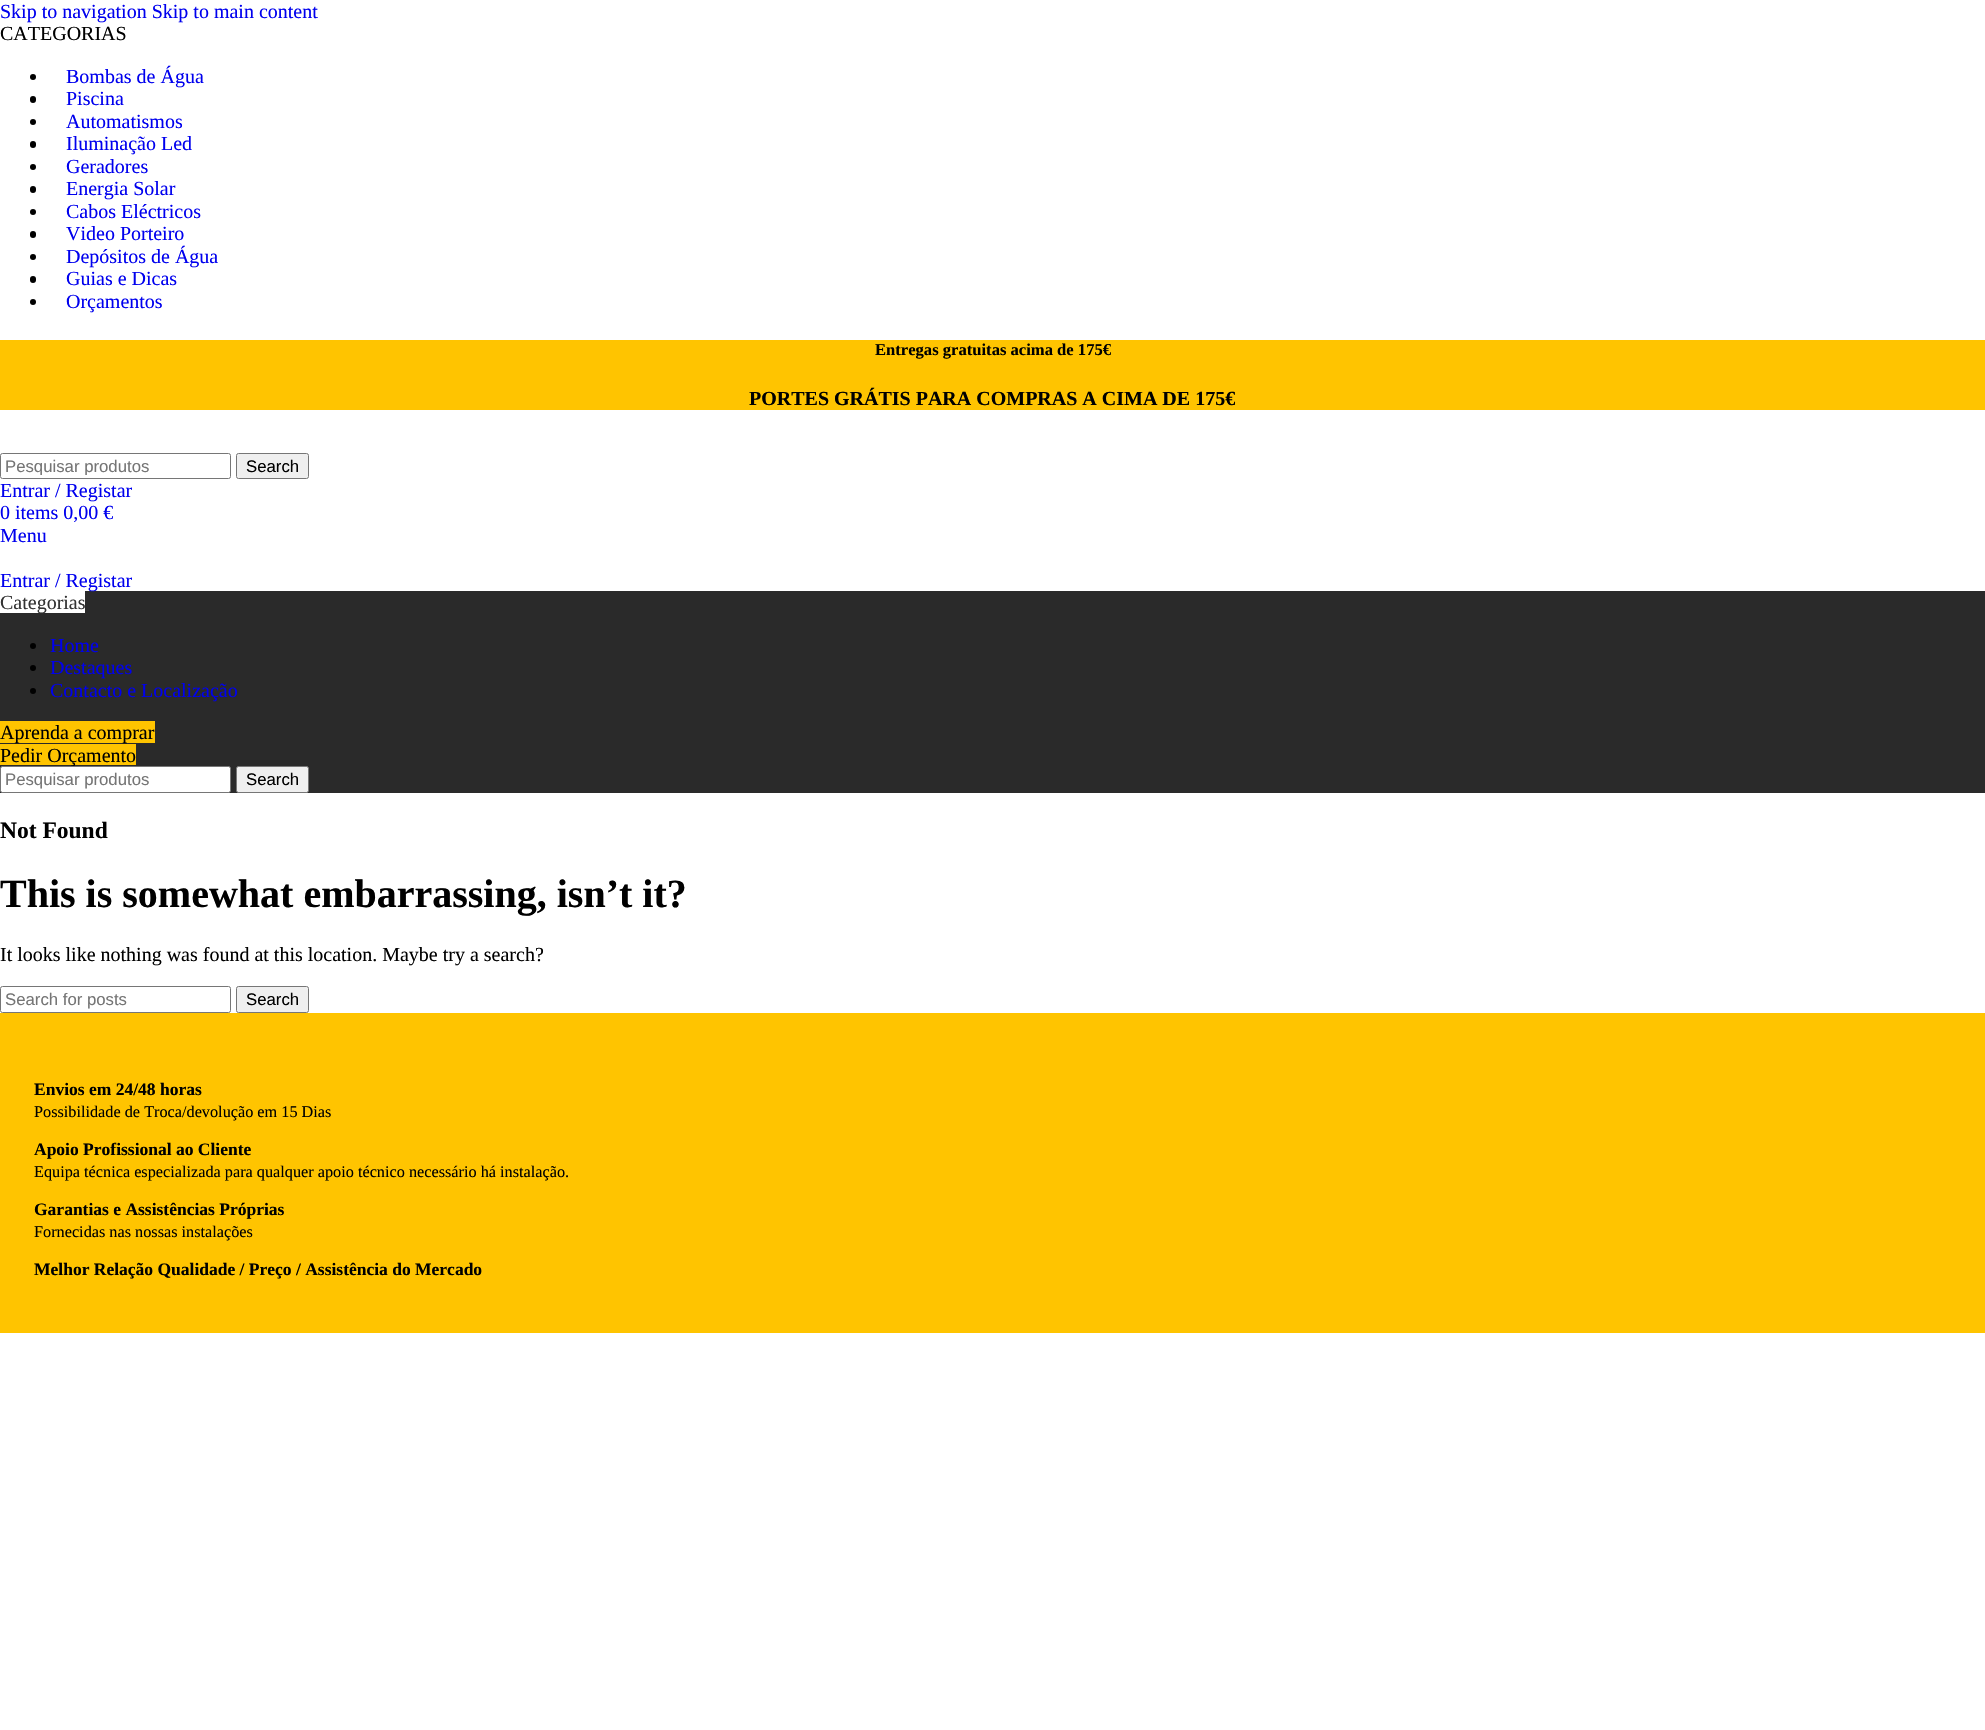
void draw(SkCanvas* canvas) {
    SkPaint paint;
    paint.setAntiAlias(true);
    auto face = [&](const char* family, int weight, float size, bool italic = false) {
        SkFontStyle style(weight, SkFontStyle::kNormal_Width,
            italic ? SkFontStyle::kItalic_Slant : SkFontStyle::kUpright_Slant);
        SkFont result(fontMgr->matchFamilyStyle(family, style), size);
        result.setSubpixel(true);
        return result;
    };
    auto write = [&](const char* s, float x, float y, const SkFont& font, SkColor color) {
        SkPaint ink(SkColor4f::FromColor(color));
        ink.setAntiAlias(true);
        canvas->drawString(s, x, y, font, ink);
    };
    auto block = [&](float x, float y, float w, float h, SkColor color) {
        SkPaint ink(SkColor4f::FromColor(color));
        ink.setAntiAlias(true);
        canvas->drawRect(SkRect::MakeXYWH(x, y, w, h), ink);
    };
    auto card = [&](float x, float y, float w, float h, float radius, SkColor color) {
        SkPaint ink(SkColor4f::FromColor(color));
        ink.setAntiAlias(true);
        canvas->drawRoundRect(SkRect::MakeXYWH(x, y, w, h), radius, radius, ink);
    };
    canvas->clear(SK_ColorWHITE);
    auto kFont1 = face("Liberation Serif", 400, 20);
    write("Skip to navigation Skip to main content", 0, 18, kFont1, SkColorSetRGB(0, 0, 238));
    write("CATEGORIAS", 0, 40, kFont1, SK_ColorBLACK);
    paint.setColor(SK_ColorBLACK);
    canvas->drawCircle(33, 77, 3, paint);
    write("Bombas de Água", 66, 83, kFont1, SkColorSetRGB(0, 0, 238));
    card(30, 96, 6, 7, 3, SK_ColorBLACK);
    write("Piscina", 66, 105, kFont1, SkColorSetRGB(0, 0, 238));
    canvas->drawCircle(33, 122, 3, paint);
    write("Automatismos", 66, 128, kFont1, SkColorSetRGB(0, 0, 238));
    card(30, 141, 6, 7, 3, SK_ColorBLACK);
    write("Iluminação Led", 66, 150, kFont1, SkColorSetRGB(0, 0, 238));
    canvas->drawCircle(33, 167, 3, paint);
    write("Geradores", 66, 173, kFont1, SkColorSetRGB(0, 0, 238));
    card(30, 186, 6, 7, 3, SK_ColorBLACK);
    write("Energia Solar", 66, 195, kFont1, SkColorSetRGB(0, 0, 238));
    canvas->drawCircle(33, 212, 3, paint);
    write("Cabos Eléctricos", 66, 218, kFont1, SkColorSetRGB(0, 0, 238));
    card(30, 231, 6, 7, 3, SK_ColorBLACK);
    write("Video Porteiro", 66, 240, kFont1, SkColorSetRGB(0, 0, 238));
    canvas->drawCircle(33, 257, 3, paint);
    write("Depósitos de Água", 66, 263, kFont1, SkColorSetRGB(0, 0, 238));
    card(30, 276, 6, 7, 3, SK_ColorBLACK);
    write("Guias e Dicas", 66, 285, kFont1, SkColorSetRGB(0, 0, 238));
    canvas->drawCircle(33, 302, 3, paint);
    write("Orçamentos", 66, 308, kFont1, SkColorSetRGB(0, 0, 238));
    block(0, 340, 1985, 70, SkColorSetRGB(255, 196, 0));
    auto kFont2 = face("Liberation Serif", 700, 16.6f);
    write("Entregas gratuitas acima de 175€", 875, 355, kFont2, SK_ColorBLACK);
    auto kFont3 = face("Liberation Serif", 700, 20);
    write("PORTES GRÁTIS PARA COMPRAS A CIMA DE 175€", 749, 405, kFont3, SK_ColorBLACK);
    paint.setStyle(SkPaint::kStroke_Style);
    paint.setStrokeWidth(1);
    paint.setColor(SkColorSetRGB(118, 118, 118));
    canvas->drawRoundRect(SkRect::MakeXYWH(0.5f, 453.5f, 230, 25), 2, 2, paint);
    canvas->save();
    canvas->clipRect(SkRect::MakeXYWH(5, 456, 221, 19));
    auto kFont4 = face("Liberation Sans", 400, 16.75f);
    write("Pesquisar produtos", 5, 472, kFont4, SkColorSetRGB(117, 117, 117));
    canvas->restore();
    paint.setStyle(SkPaint::kFill_Style);
    paint.setColor(SkColorSetRGB(239, 239, 239));
    canvas->drawRoundRect(SkRect::MakeXYWH(236.5f, 453.5f, 72, 25), 2, 2, paint);
    paint.setStyle(SkPaint::kStroke_Style);
    paint.setColor(SkColorSetRGB(118, 118, 118));
    canvas->drawRoundRect(SkRect::MakeXYWH(236.5f, 453.5f, 72, 25), 2, 2, paint);
    write("Search", 246, 472, kFont4, SK_ColorBLACK);
    write("Entrar / Registar", 0, 497, kFont1, SkColorSetRGB(0, 0, 238));
    write("0 items 0,00 €", 0, 519, kFont1, SkColorSetRGB(0, 0, 238));
    write("Menu", 0, 542, kFont1, SkColorSetRGB(0, 0, 238));
    block(0, 591, 1985, 202, SkColorSetRGB(42, 42, 42));
    write("Entrar / Registar", 0, 587, kFont1, SkColorSetRGB(0, 0, 238));
    block(0, 591, 85, 22, SK_ColorWHITE);
    write("Categorias", 0, 609, kFont1, SkColorSetRGB(51, 51, 51));
    paint.setStyle(SkPaint::kFill_Style);
    paint.setColor(SK_ColorBLACK);
    canvas->drawCircle(33, 646, 3, paint);
    write("Home", 50, 652, kFont1, SkColorSetRGB(0, 0, 238));
    canvas->drawCircle(33, 668, 3, paint);
    write("Destaques", 50, 674, kFont1, SkColorSetRGB(0, 0, 238));
    canvas->drawCircle(33, 691, 3, paint);
    write("Contacto e Localização", 50, 697, kFont1, SkColorSetRGB(0, 0, 238));
    block(0, 721, 155, 22, SkColorSetRGB(255, 196, 0));
    write("Aprenda a comprar", 0, 739, kFont1, SK_ColorBLACK);
    block(0, 744, 136, 21, SkColorSetRGB(255, 196, 0));
    write("Pedir Orçamento", 0, 762, kFont1, SK_ColorBLACK);
    paint.setColor(SK_ColorWHITE);
    canvas->drawRoundRect(SkRect::MakeXYWH(0.5f, 766.5f, 230, 26), 2, 2, paint);
    paint.setStyle(SkPaint::kStroke_Style);
    paint.setColor(SkColorSetRGB(118, 118, 118));
    canvas->drawRoundRect(SkRect::MakeXYWH(0.5f, 766.5f, 230, 26), 2, 2, paint);
    write("Pesquisar produtos", 5, 785, kFont4, SkColorSetRGB(117, 117, 117));
    paint.setStyle(SkPaint::kFill_Style);
    paint.setColor(SkColorSetRGB(239, 239, 239));
    canvas->drawRoundRect(SkRect::MakeXYWH(236.5f, 766.5f, 72, 26), 2, 2, paint);
    paint.setStyle(SkPaint::kStroke_Style);
    paint.setColor(SkColorSetRGB(118, 118, 118));
    canvas->drawRoundRect(SkRect::MakeXYWH(236.5f, 766.5f, 72, 26), 2, 2, paint);
    write("Search", 246, 785, kFont4, SK_ColorBLACK);
    auto kFont5 = face("Liberation Serif", 700, 23.5f);
    write("Not Found", 0, 838, kFont5, SK_ColorBLACK);
    auto kFont6 = face("Liberation Serif", 700, 40);
    write("This is somewhat embarrassing, isn’t it?", 0, 907, kFont6, SK_ColorBLACK);
    write("It looks like nothing was found at this location. Maybe try a search?", 0, 961, kFont1, SK_ColorBLACK);
    canvas->drawRoundRect(SkRect::MakeXYWH(0.5f, 986.5f, 230, 26), 2, 2, paint);
    write("Search for posts", 5, 1005, kFont4, SkColorSetRGB(117, 117, 117));
    paint.setStyle(SkPaint::kFill_Style);
    paint.setColor(SkColorSetRGB(239, 239, 239));
    canvas->drawRoundRect(SkRect::MakeXYWH(236.5f, 986.5f, 72, 26), 2, 2, paint);
    paint.setStyle(SkPaint::kStroke_Style);
    paint.setColor(SkColorSetRGB(118, 118, 118));
    canvas->drawRoundRect(SkRect::MakeXYWH(236.5f, 986.5f, 72, 26), 2, 2, paint);
    write("Search", 246, 1005, kFont4, SK_ColorBLACK);
    block(0, 1013, 1985, 320, SkColorSetRGB(255, 196, 0));
    auto kFont7 = face("Liberation Serif", 700, 17.5f);
    write("Envios em 24/48 horas", 34, 1095, kFont7, SK_ColorBLACK);
    auto kFont8 = face("Liberation Serif", 400, 16.25f);
    write("Possibilidade de Troca/devolução em 15 Dias", 34, 1117, kFont8, SK_ColorBLACK);
    write("Apoio Profissional ao Cliente", 34, 1155, kFont7, SK_ColorBLACK);
    write("Equipa técnica especializada para qualquer apoio técnico necessário há instalação.", 34, 1177, kFont8, SK_ColorBLACK);
    write("Garantias e Assistências Próprias", 34, 1215, kFont7, SK_ColorBLACK);
    write("Fornecidas nas nossas instalações", 34, 1237, kFont8, SK_ColorBLACK);
    write("Melhor Relação Qualidade / Preço / Assistência do Mercado", 34, 1275, kFont7, SK_ColorBLACK);
}
